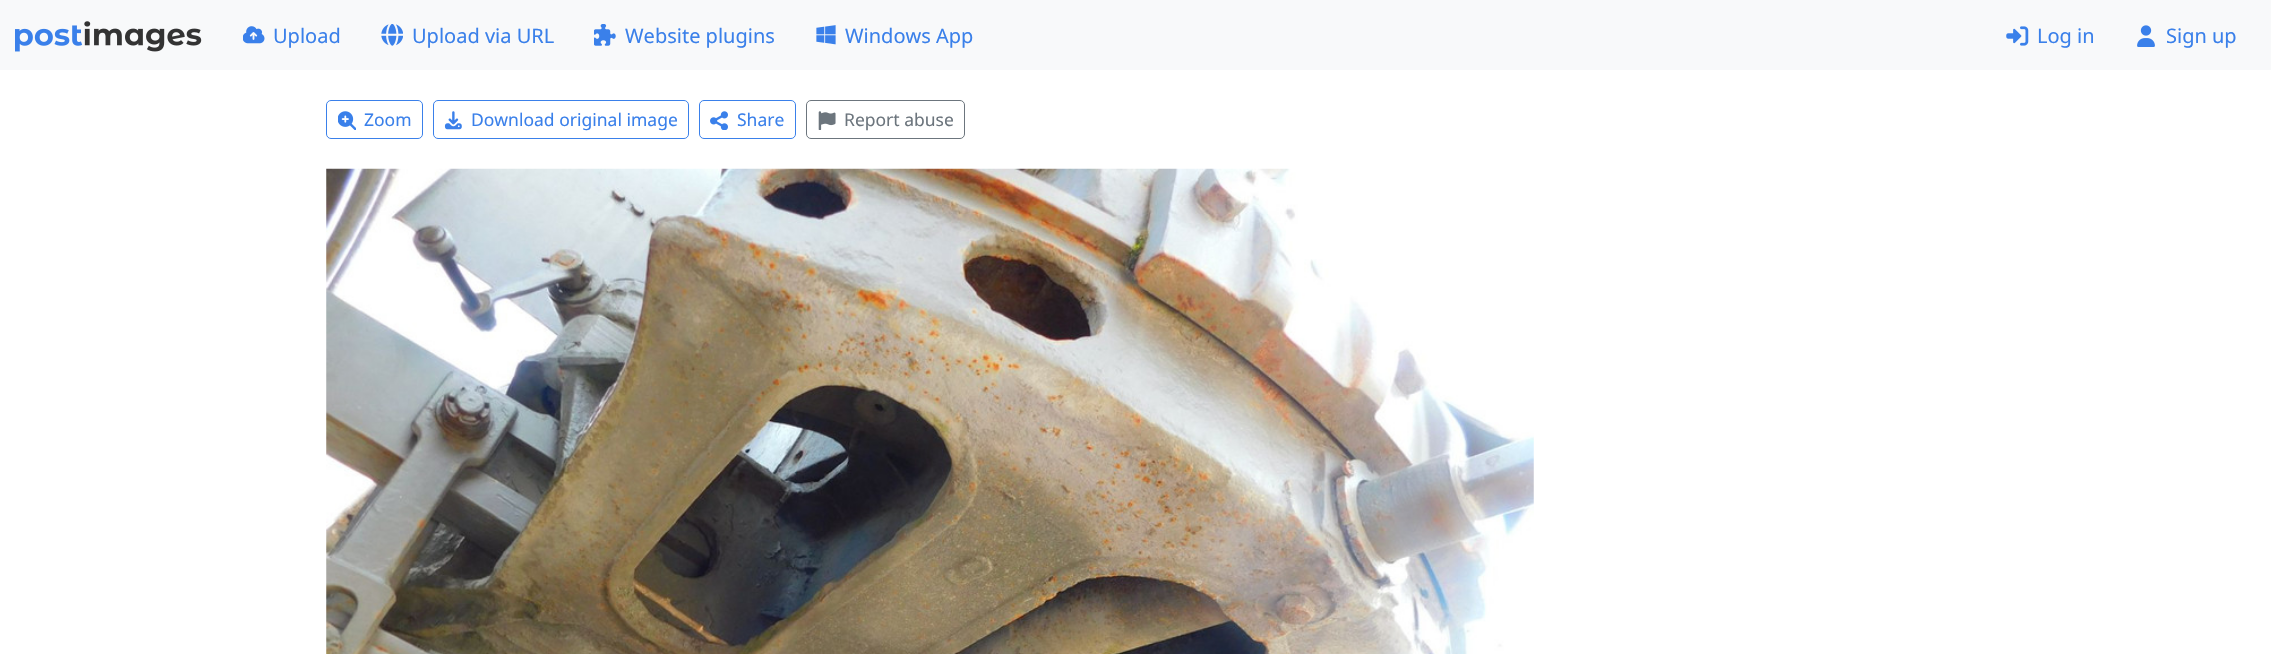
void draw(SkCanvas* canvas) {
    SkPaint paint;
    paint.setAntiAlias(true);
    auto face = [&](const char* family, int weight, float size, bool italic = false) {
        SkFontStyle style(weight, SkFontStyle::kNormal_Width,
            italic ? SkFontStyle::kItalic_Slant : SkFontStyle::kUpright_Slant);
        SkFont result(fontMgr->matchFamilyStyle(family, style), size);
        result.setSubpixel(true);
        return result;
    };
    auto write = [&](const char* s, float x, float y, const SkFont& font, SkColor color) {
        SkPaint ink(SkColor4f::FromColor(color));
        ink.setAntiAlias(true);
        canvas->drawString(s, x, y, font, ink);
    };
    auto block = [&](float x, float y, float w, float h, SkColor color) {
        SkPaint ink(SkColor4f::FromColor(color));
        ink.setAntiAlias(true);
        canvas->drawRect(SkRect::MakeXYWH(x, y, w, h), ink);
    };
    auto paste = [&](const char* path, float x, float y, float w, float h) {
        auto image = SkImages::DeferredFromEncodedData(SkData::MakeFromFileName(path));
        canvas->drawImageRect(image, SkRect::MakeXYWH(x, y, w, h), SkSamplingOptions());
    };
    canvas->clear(SK_ColorWHITE);
    block(0, 0, 2271, 70, SkColorSetRGB(248, 249, 250));
    paste("pic1.png", 15, 21, 187, 31);
    paste("pic2.png", 243, 26, 22, 18);
    auto kFont1 = face("Noto Sans", 400, 20);
    write("Upload", 273, 43, kFont1, SkColorSetRGB(58, 128, 234));
    paste("pic3.png", 381, 24, 22, 22);
    write("Upload via URL", 412, 43, kFont1, SkColorSetRGB(58, 128, 234));
    paste("pic4.png", 594, 24, 22, 22);
    write("Website plugins", 625, 43, kFont1, SkColorSetRGB(58, 128, 234));
    paste("pic5.png", 816, 25, 20, 20);
    write("Windows App", 845, 43, kFont1, SkColorSetRGB(58, 128, 234));
    paste("pic6.png", 2006, 26, 23, 20);
    write("Log in", 2037, 43, kFont1, SkColorSetRGB(58, 128, 234));
    paste("pic7.png", 2137, 25, 18, 22);
    write("Sign up", 2166, 43, kFont1, SkColorSetRGB(58, 128, 234));
    paint.setStyle(SkPaint::kStroke_Style);
    paint.setStrokeWidth(1);
    paint.setColor(SkColorSetRGB(58, 128, 234));
    canvas->drawRoundRect(SkRect::MakeXYWH(326.5f, 100.5f, 96, 38), 4.5f, 4.5f, paint);
    paste("pic8.png", 338, 111, 18, 19);
    auto kFont2 = face("Noto Sans", 400, 17.5f);
    write("Zoom", 364, 126, kFont2, SkColorSetRGB(58, 128, 234));
    canvas->drawRoundRect(SkRect::MakeXYWH(433.5f, 100.5f, 255, 38), 4.5f, 4.5f, paint);
    paste("pic9.png", 444, 111, 18, 19);
    write("Download original image", 471, 126, kFont2, SkColorSetRGB(58, 128, 234));
    canvas->drawRoundRect(SkRect::MakeXYWH(699.5f, 100.5f, 96, 38), 4.5f, 4.5f, paint);
    paste("pic10.png", 710, 111, 18, 19);
    write("Share", 737, 126, kFont2, SkColorSetRGB(58, 128, 234));
    paint.setColor(SkColorSetRGB(108, 117, 125));
    canvas->drawRoundRect(SkRect::MakeXYWH(806.5f, 100.5f, 158, 38), 4.5f, 4.5f, paint);
    paste("pic11.png", 818, 111, 18, 19);
    write("Report abuse", 844, 126, kFont2, SkColorSetRGB(108, 117, 125));
    paste("pic12.png", 326, 168, 1208, 486);
}
